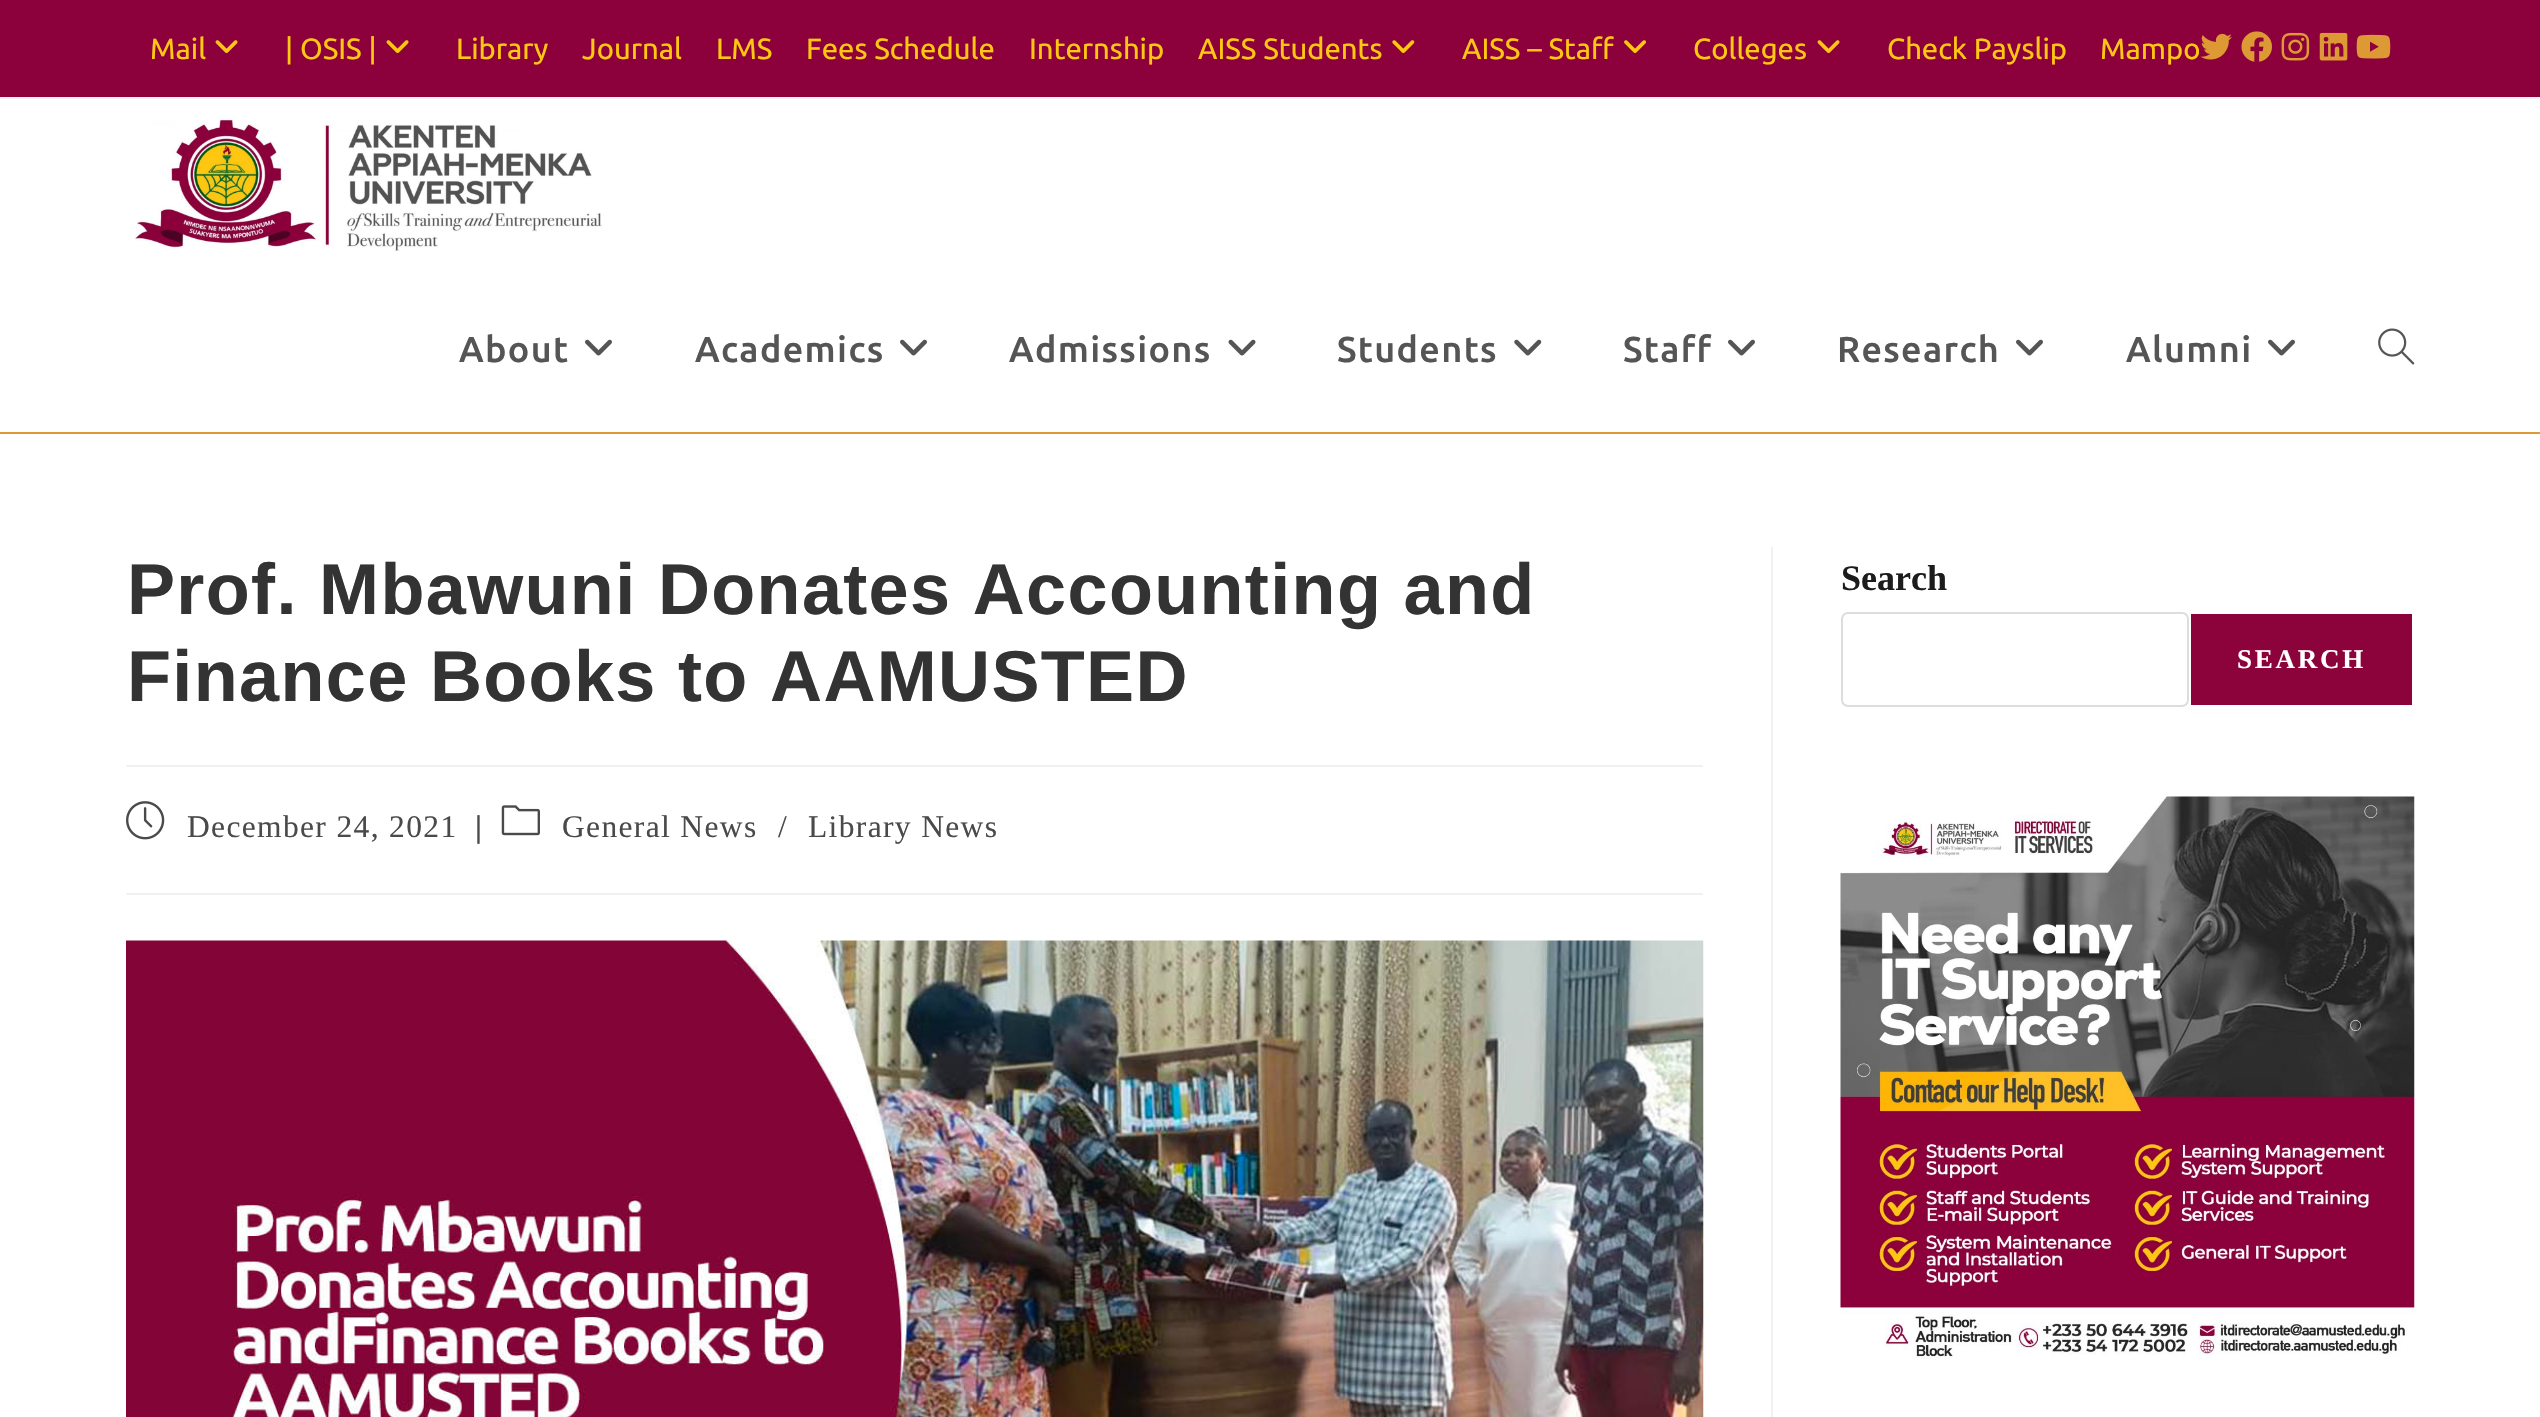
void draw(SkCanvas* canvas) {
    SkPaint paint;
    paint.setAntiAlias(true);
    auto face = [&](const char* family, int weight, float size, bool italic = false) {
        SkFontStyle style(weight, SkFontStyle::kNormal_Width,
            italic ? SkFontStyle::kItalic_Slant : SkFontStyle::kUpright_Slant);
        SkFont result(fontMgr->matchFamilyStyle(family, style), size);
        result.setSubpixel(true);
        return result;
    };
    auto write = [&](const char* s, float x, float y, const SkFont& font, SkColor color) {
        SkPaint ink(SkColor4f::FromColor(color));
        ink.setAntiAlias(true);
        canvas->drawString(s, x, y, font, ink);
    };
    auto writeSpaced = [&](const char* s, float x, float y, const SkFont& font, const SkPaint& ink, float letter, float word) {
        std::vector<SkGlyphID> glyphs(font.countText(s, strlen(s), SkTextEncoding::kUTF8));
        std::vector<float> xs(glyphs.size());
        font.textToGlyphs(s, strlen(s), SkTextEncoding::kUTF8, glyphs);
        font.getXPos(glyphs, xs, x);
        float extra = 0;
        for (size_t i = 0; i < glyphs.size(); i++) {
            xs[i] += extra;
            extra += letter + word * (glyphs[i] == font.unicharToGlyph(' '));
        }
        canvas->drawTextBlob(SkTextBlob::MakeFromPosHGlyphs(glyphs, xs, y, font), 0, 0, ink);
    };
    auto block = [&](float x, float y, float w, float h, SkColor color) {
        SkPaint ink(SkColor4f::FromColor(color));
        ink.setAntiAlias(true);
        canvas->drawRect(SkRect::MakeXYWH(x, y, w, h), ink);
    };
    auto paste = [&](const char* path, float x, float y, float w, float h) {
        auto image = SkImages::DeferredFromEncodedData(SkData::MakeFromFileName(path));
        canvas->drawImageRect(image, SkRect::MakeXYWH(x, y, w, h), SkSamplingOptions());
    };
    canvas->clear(SK_ColorWHITE);
    block(0, 0, 2540, 97, SkColorSetRGB(140, 0, 59));
    block(0, 97, 2540, 2, SkColorSetRGB(241, 241, 241));
    auto kFont1 = face("Ubuntu", 400, 29.25f);
    write("Mail", 150, 59, kFont1, SkColorSetRGB(255, 199, 18));
    paste("pic1.png", 215, 40, 23, 13);
    write("| OSIS |", 285, 59, kFont1, SkColorSetRGB(255, 199, 18));
    paste("pic1.png", 386, 40, 23, 13);
    write("Library", 456, 59, kFont1, SkColorSetRGB(255, 199, 18));
    write("Journal", 582, 59, kFont1, SkColorSetRGB(255, 199, 18));
    write("LMS", 716, 59, kFont1, SkColorSetRGB(255, 199, 18));
    write("Fees Schedule", 806, 59, kFont1, SkColorSetRGB(255, 199, 18));
    write("Internship", 1029, 59, kFont1, SkColorSetRGB(255, 199, 18));
    write("AISS Students", 1198, 59, kFont1, SkColorSetRGB(255, 199, 18));
    paste("pic2.png", 1392, 40, 23, 13);
    write("AISS – Staff", 1462, 59, kFont1, SkColorSetRGB(255, 199, 18));
    paste("pic3.png", 1624, 40, 22, 13);
    write("Colleges", 1693, 59, kFont1, SkColorSetRGB(255, 199, 18));
    paste("pic1.png", 1817, 40, 23, 13);
    write("Check Payslip", 1887, 59, kFont1, SkColorSetRGB(255, 199, 18));
    write("Mampo", 2100, 59, kFont1, SkColorSetRGB(255, 199, 18));
    paste("pic4.png", 2200, 33, 32, 27);
    paste("pic5.png", 2241, 31, 31, 31);
    paste("pic6.png", 2281, 32, 29, 29);
    paste("pic7.png", 2319, 32, 29, 29);
    paste("pic8.png", 2356, 34, 35, 25);
    block(0, 432, 2540, 2, SkColorSetRGB(221, 153, 51));
    paste("pic9.png", 135, 117, 467, 134);
    auto kFont2 = face("Ubuntu", 500, 36);
    paint.setColor(SkColorSetRGB(85, 85, 85));
    writeSpaced("About", 459, 362, kFont2, paint, 1.35f, 0);
    paste("pic10.png", 585, 339, 27, 17);
    writeSpaced("Academics", 695, 362, kFont2, paint, 1.35f, 0);
    paste("pic10.png", 900, 339, 27, 17);
    writeSpaced("Admissions", 1009, 362, kFont2, paint, 1.35f, 0);
    paste("pic11.png", 1228, 339, 28, 17);
    writeSpaced("Students", 1337, 362, kFont2, paint, 1.35f, 0);
    paste("pic12.png", 1514, 339, 28, 17);
    writeSpaced("Staff", 1623, 362, kFont2, paint, 1.35f, 0);
    paste("pic10.png", 1728, 339, 27, 17);
    writeSpaced("Research", 1837, 362, kFont2, paint, 1.35f, 0);
    paste("pic10.png", 2016, 339, 27, 17);
    writeSpaced("Alumni", 2126, 362, kFont2, paint, 1.35f, 0);
    paste("pic10.png", 2268, 339, 27, 17);
    paste("pic13.png", 2378, 328, 37, 37);
    block(1771, 547, 2, 870, SkColorSetRGB(241, 241, 241));
    block(126, 765, 1577, 2, SkColorSetRGB(241, 241, 241));
    auto kFont3 = face("Liberation Sans", 700, 72);
    paint.setColor(SkColorSetRGB(51, 51, 51));
    writeSpaced("Prof. Mbawuni Donates Accounting and", 127, 614, kFont3, paint, 1.35f, 0);
    writeSpaced("Finance Books to AAMUSTED", 127, 701, kFont3, paint, 1.35f, 0);
    block(126, 893, 1577, 2, SkColorSetRGB(241, 241, 241));
    paste("pic14.png", 126, 801, 39, 39);
    auto kFont4 = face("Liberation Serif", 400, 31.5f);
    paint.setColor(SkColorSetRGB(74, 74, 74));
    writeSpaced("December 24, 2021", 187, 837, kFont4, paint, 1.35f, 0);
    auto kFont5 = face("Liberation Serif", 700, 31.5f);
    writeSpaced("|", 475, 837, kFont5, paint, 1.35f, 0);
    paste("pic15.png", 501, 805, 39, 31);
    writeSpaced("General News", 562, 837, kFont4, paint, 1.35f, 0);
    writeSpaced("/", 778, 837, kFont4, paint, 1.35f, 0);
    writeSpaced("Library News", 808, 837, kFont4, paint, 1.35f, 0);
    paste("pic16.png", 126, 940, 1578, 477);
    auto kFont6 = face("Liberation Serif", 700, 36);
    write("Search", 1841, 590, kFont6, SkColorSetRGB(28, 28, 28));
    paint.setStyle(SkPaint::kStroke_Style);
    paint.setStrokeWidth(2);
    paint.setColor(SkColorSetRGB(221, 221, 221));
    canvas->drawRoundRect(SkRect::MakeXYWH(1842, 613, 346, 93), 6, 6, paint);
    block(2191, 614, 221, 91, SkColorSetRGB(140, 3, 59));
    auto kFont7 = face("Liberation Serif", 700, 27);
    paint.setStyle(SkPaint::kFill_Style);
    paint.setColor(SK_ColorWHITE);
    writeSpaced("SEARCH", 2237, 668, kFont7, paint, 2.75f, 0);
    paste("pic17.png", 1840, 796, 575, 563);
}
